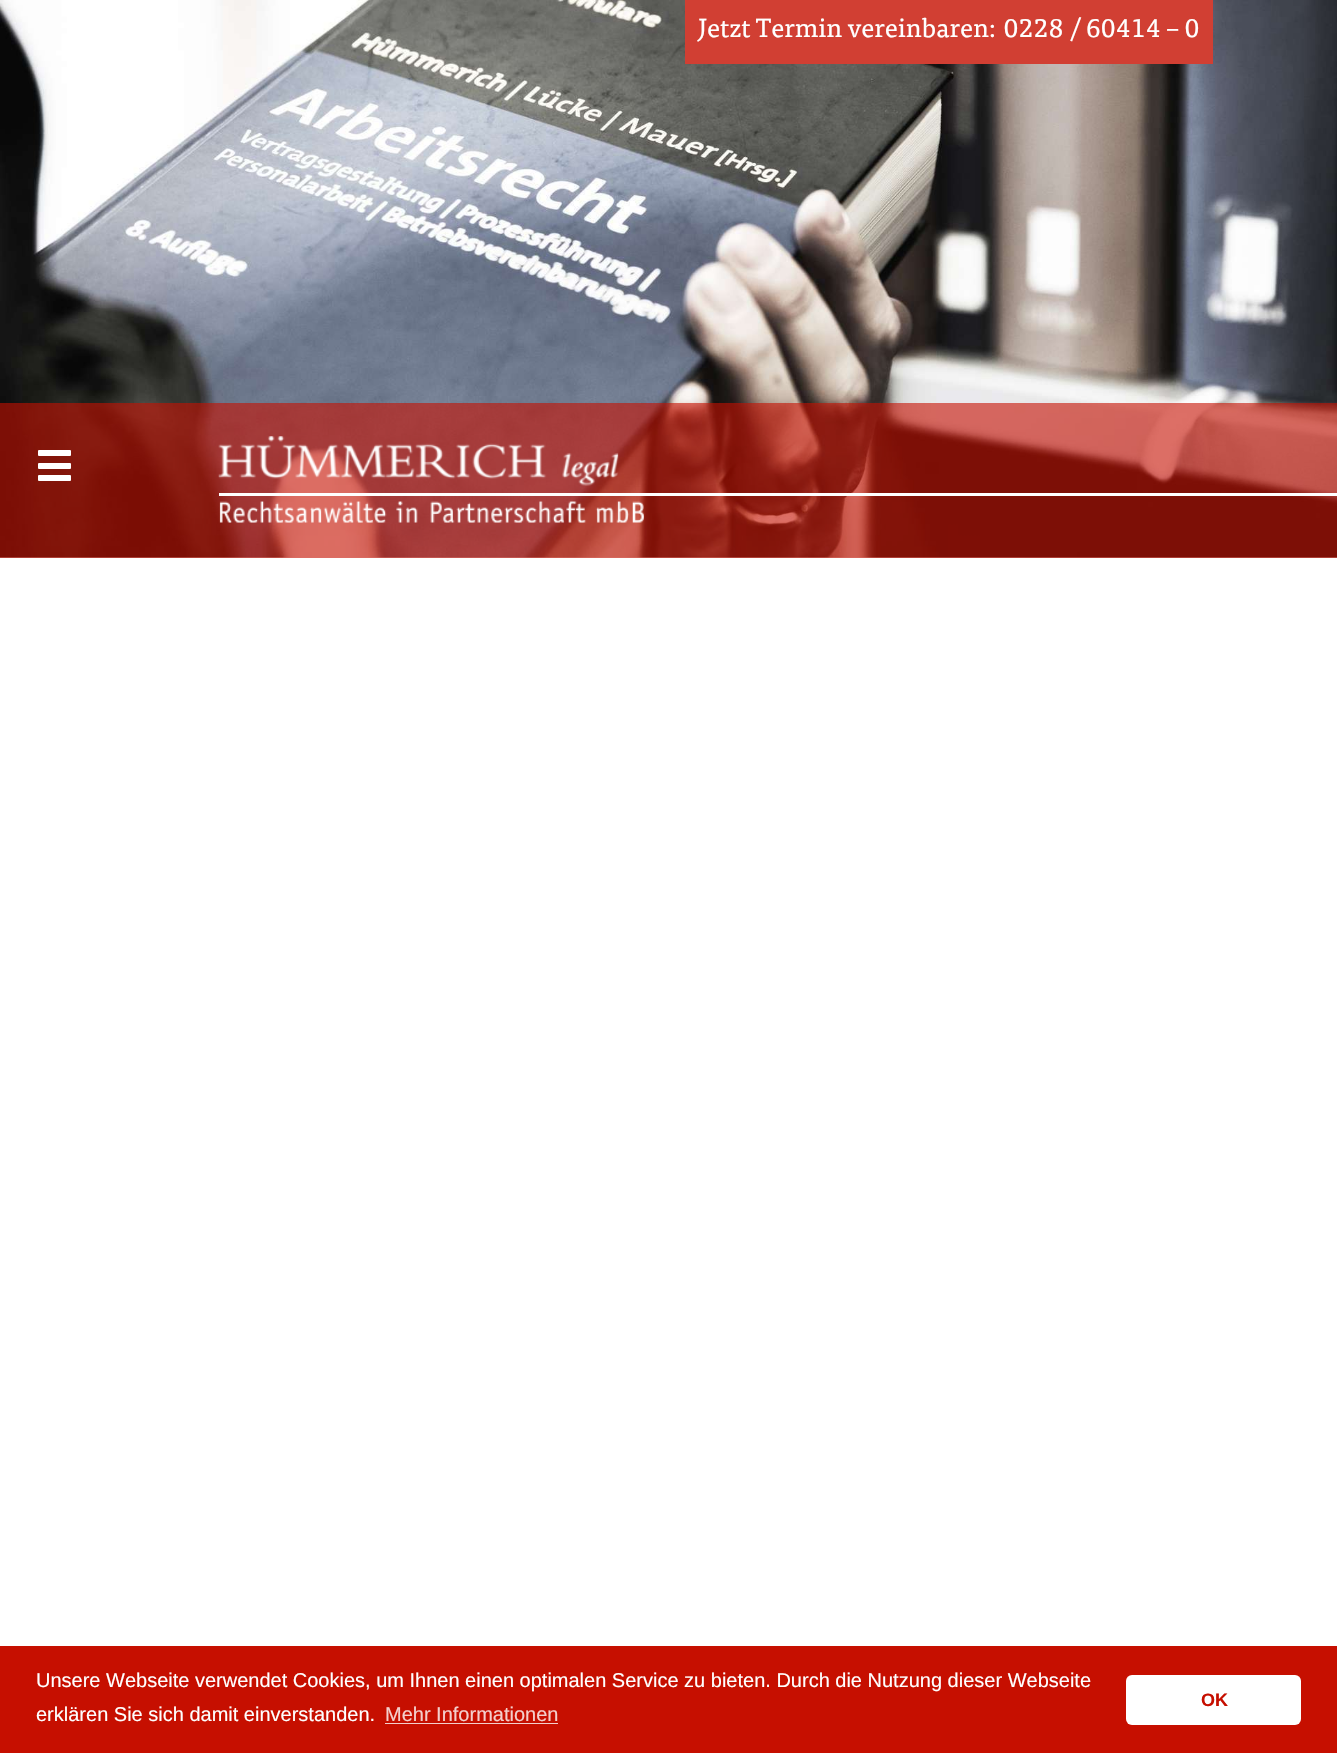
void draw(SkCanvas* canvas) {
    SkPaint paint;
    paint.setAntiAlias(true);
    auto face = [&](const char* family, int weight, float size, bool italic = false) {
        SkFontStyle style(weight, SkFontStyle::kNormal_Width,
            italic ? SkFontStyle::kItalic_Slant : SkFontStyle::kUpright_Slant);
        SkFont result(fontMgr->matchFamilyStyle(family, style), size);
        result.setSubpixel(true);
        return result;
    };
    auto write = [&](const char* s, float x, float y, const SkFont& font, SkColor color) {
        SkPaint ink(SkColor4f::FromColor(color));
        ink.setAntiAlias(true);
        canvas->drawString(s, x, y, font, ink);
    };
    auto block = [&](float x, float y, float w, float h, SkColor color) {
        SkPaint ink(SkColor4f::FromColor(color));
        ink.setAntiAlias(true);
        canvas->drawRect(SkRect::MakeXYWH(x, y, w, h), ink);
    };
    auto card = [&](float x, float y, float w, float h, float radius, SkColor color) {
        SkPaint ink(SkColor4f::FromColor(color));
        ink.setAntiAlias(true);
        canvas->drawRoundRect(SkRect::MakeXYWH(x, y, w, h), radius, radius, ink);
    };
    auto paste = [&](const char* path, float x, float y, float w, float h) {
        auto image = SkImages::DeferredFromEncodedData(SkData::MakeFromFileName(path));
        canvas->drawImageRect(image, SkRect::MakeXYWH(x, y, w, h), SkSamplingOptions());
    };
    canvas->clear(SK_ColorWHITE);
    paste("pic1.png", 0, 0, 1337, 558);
    block(685, 0, 528, 64, SkColorSetRGB(209, 63, 51));
    auto kFont1 = face("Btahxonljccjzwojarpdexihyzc", 400, 26.25f);
    write("Jetzt Termin vereinbaren: 0228 / 60414 – 0", 698, 37, kFont1, SK_ColorWHITE);
    block(0, 403, 1337, 155, SkColorSetARGB(153, 198, 15, 0));
    card(38, 450, 33, 6, 1, SK_ColorWHITE);
    card(38, 463, 33, 6, 1, SK_ColorWHITE);
    card(38, 475, 33, 6, 1, SK_ColorWHITE);
    block(219, 493, 1118, 3, SK_ColorWHITE);
    paste("pic2.png", 218, 436, 426, 87);
    block(0, 1646, 1337, 107, SkColorSetRGB(198, 15, 0));
    auto kFont2 = face("Liberation Sans", 400, 20);
    write("Unsere Webseite verwendet Cookies, um Ihnen einen optimalen Service zu bieten. Durch die Nutzung dieser Webseite", 36, 1687, kFont2, SK_ColorWHITE);
    write("erklären Sie sich damit einverstanden.", 36, 1721, kFont2, SK_ColorWHITE);
    write("Mehr Informationen", 385, 1721, kFont2, SkColorSetRGB(244, 207, 204));
    block(385, 1723, 173, 1, SkColorSetRGB(244, 207, 204));
    card(1126, 1675, 175, 50, 6, SK_ColorWHITE);
    auto kFont3 = face("Liberation Sans", 700, 18);
    write("OK", 1201, 1706, kFont3, SkColorSetRGB(198, 15, 0));
}
